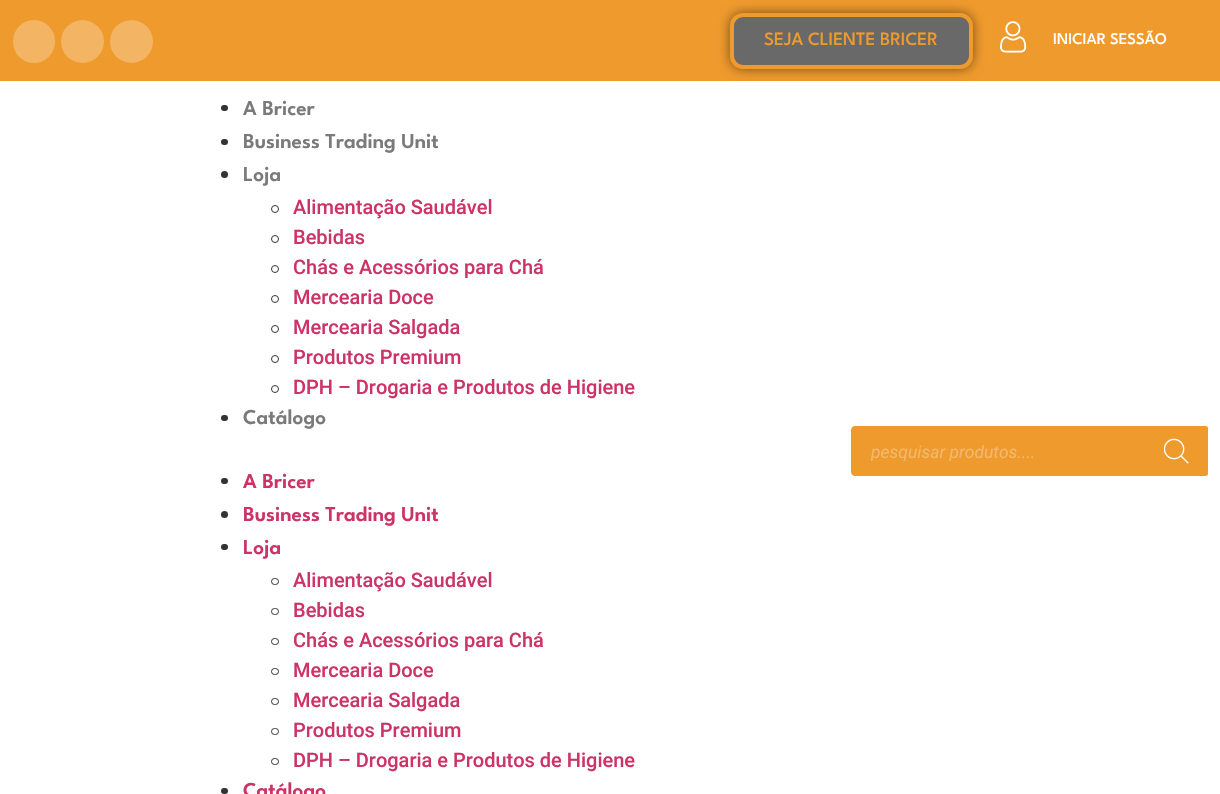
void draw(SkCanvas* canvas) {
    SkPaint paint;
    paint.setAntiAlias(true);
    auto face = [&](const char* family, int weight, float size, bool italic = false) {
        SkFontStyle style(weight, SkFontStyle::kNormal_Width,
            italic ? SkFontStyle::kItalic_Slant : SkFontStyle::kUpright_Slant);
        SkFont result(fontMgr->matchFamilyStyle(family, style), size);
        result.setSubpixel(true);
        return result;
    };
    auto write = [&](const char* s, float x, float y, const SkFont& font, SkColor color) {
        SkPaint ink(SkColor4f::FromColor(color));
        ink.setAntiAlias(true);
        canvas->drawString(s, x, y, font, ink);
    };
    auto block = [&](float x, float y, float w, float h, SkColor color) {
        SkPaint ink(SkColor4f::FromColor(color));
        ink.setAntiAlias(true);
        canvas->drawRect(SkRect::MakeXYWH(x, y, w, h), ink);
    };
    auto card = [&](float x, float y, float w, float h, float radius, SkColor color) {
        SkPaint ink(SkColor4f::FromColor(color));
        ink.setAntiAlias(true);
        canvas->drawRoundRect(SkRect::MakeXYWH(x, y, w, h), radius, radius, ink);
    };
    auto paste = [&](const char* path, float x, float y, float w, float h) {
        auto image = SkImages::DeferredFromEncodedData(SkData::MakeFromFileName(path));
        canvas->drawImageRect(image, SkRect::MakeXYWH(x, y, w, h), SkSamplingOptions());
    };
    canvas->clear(SK_ColorWHITE);
    block(0, 0, 1220, 81, SkColorSetRGB(239, 154, 45));
    card(13, 20, 42, 43, 21, SkColorSetRGB(243, 180, 100));
    paint.setColor(SkColorSetRGB(243, 180, 100));
    canvas->drawCircle(82.5f, 41.5f, 21.5f, paint);
    canvas->drawCircle(131.5f, 41.5f, 21.5f, paint);
    paint.setColor(SkColorSetARGB(128, 0, 0, 0));
    paint.setMaskFilter(SkMaskFilter::MakeBlur(kNormal_SkBlurStyle, 6));
    canvas->drawRoundRect(SkRect::MakeXYWH(730, 13, 243, 56), 13, 13, paint);
    paint.setMaskFilter(nullptr);
    paint.setColor(SkColorSetRGB(105, 105, 105));
    canvas->drawRoundRect(SkRect::MakeXYWH(732, 15, 239, 52), 11, 11, paint);
    paint.setStyle(SkPaint::kStroke_Style);
    paint.setStrokeWidth(4);
    paint.setColor(SkColorSetRGB(239, 154, 45));
    canvas->drawRoundRect(SkRect::MakeXYWH(732, 15, 239, 52), 11, 11, paint);
    auto kFont1 = face("League Spartan", 500, 18.75f);
    write("SEJA CLIENTE BRICER", 764, 45, kFont1, SkColorSetRGB(239, 154, 45));
    paste("pic1.png", 1000, 21, 27, 32);
    auto kFont2 = face("League Spartan", 500, 16.25f);
    write("INICIAR SESSÃO", 1053, 44, kFont2, SK_ColorWHITE);
    card(221, 105, 7, 6, 3, SkColorSetRGB(51, 51, 51));
    auto kFont3 = face("League Spartan", 600, 21.25f);
    write("A Bricer", 243, 115, kFont3, SkColorSetRGB(122, 122, 122));
    card(221, 139, 7, 6, 3, SkColorSetRGB(51, 51, 51));
    write("Business Trading Unit", 243, 148, kFont3, SkColorSetRGB(122, 122, 122));
    paint.setStyle(SkPaint::kFill_Style);
    paint.setColor(SkColorSetRGB(51, 51, 51));
    canvas->drawCircle(224.5f, 174.5f, 3.5f, paint);
    write("Loja", 243, 181, kFont3, SkColorSetRGB(122, 122, 122));
    paint.setStyle(SkPaint::kStroke_Style);
    paint.setStrokeWidth(1);
    canvas->drawCircle(275, 209, 3.5f, paint);
    auto kFont4 = face("Roboto", 500, 20);
    write("Alimentação Saudável", 293, 214, kFont4, SkColorSetRGB(204, 51, 102));
    canvas->drawCircle(275, 239, 3.5f, paint);
    write("Bebidas", 293, 244, kFont4, SkColorSetRGB(204, 51, 102));
    canvas->drawCircle(275, 269, 3.5f, paint);
    write("Chás e Acessórios para Chá", 293, 274, kFont4, SkColorSetRGB(204, 51, 102));
    canvas->drawCircle(275, 299, 3.5f, paint);
    write("Mercearia Doce", 293, 304, kFont4, SkColorSetRGB(204, 51, 102));
    canvas->drawCircle(275, 329, 3.5f, paint);
    write("Mercearia Salgada", 293, 334, kFont4, SkColorSetRGB(204, 51, 102));
    canvas->drawCircle(275, 359, 3.5f, paint);
    write("Produtos Premium", 293, 364, kFont4, SkColorSetRGB(204, 51, 102));
    canvas->drawCircle(275, 389, 3.5f, paint);
    write("DPH – Drogaria e Produtos de Higiene", 293, 394, kFont4, SkColorSetRGB(204, 51, 102));
    card(221, 415, 7, 6, 3, SkColorSetRGB(51, 51, 51));
    write("Catálogo", 243, 424, kFont3, SkColorSetRGB(122, 122, 122));
    card(221, 478, 7, 6, 3, SkColorSetRGB(51, 51, 51));
    write("A Bricer", 243, 488, kFont3, SkColorSetRGB(204, 51, 102));
    paint.setStyle(SkPaint::kFill_Style);
    canvas->drawCircle(224.5f, 514.5f, 3.5f, paint);
    write("Business Trading Unit", 243, 521, kFont3, SkColorSetRGB(204, 51, 102));
    card(221, 544, 7, 6, 3, SkColorSetRGB(51, 51, 51));
    write("Loja", 243, 554, kFont3, SkColorSetRGB(204, 51, 102));
    paint.setStyle(SkPaint::kStroke_Style);
    canvas->drawRoundRect(SkRect::MakeXYWH(271.5f, 578.5f, 7, 6), 3, 3, paint);
    write("Alimentação Saudável", 293, 587, kFont4, SkColorSetRGB(204, 51, 102));
    canvas->drawRoundRect(SkRect::MakeXYWH(271.5f, 608.5f, 7, 6), 3, 3, paint);
    write("Bebidas", 293, 617, kFont4, SkColorSetRGB(204, 51, 102));
    canvas->drawRoundRect(SkRect::MakeXYWH(271.5f, 638.5f, 7, 6), 3, 3, paint);
    write("Chás e Acessórios para Chá", 293, 647, kFont4, SkColorSetRGB(204, 51, 102));
    canvas->drawRoundRect(SkRect::MakeXYWH(271.5f, 668.5f, 7, 6), 3, 3, paint);
    write("Mercearia Doce", 293, 677, kFont4, SkColorSetRGB(204, 51, 102));
    canvas->drawRoundRect(SkRect::MakeXYWH(271.5f, 698.5f, 7, 6), 3, 3, paint);
    write("Mercearia Salgada", 293, 707, kFont4, SkColorSetRGB(204, 51, 102));
    canvas->drawRoundRect(SkRect::MakeXYWH(271.5f, 728.5f, 7, 6), 3, 3, paint);
    write("Produtos Premium", 293, 737, kFont4, SkColorSetRGB(204, 51, 102));
    canvas->drawRoundRect(SkRect::MakeXYWH(271.5f, 758.5f, 7, 6), 3, 3, paint);
    write("DPH – Drogaria e Produtos de Higiene", 293, 767, kFont4, SkColorSetRGB(204, 51, 102));
    card(221, 788, 7, 6, 3, SkColorSetRGB(51, 51, 51));
    write("Catálogo", 243, 797, kFont3, SkColorSetRGB(204, 51, 102));
    paint.setStyle(SkPaint::kFill_Style);
    paint.setColor(SkColorSetRGB(239, 154, 45));
    canvas->drawRoundRect(SkRect::MakeXYWH(851.5f, 426.5f, 356, 49), 3.5f, 3.5f, paint);
    paint.setStyle(SkPaint::kStroke_Style);
    canvas->drawRoundRect(SkRect::MakeXYWH(851.5f, 426.5f, 356, 49), 3.5f, 3.5f, paint);
    canvas->save();
    canvas->clipRect(SkRect::MakeXYWH(871, 441, 317, 20));
    auto kFont5 = face("Roboto", 400, 17.5f, true);
    write("pesquisar produtos....", 871, 458, kFont5, SkColorSetRGB(244, 184, 108));
    canvas->restore();
    paint.setStyle(SkPaint::kFill_Style);
    canvas->drawPath(SkPathBuilder().moveTo(1145, 426).lineTo(1205.5f, 426).cubicTo(1207, 426, 1208, 427, 1208, 428.5f).lineTo(1208, 473.5f).cubicTo(1208, 475, 1207, 476, 1205.5f, 476).lineTo(1145, 476).close().detach(), paint);
    paste("pic2.png", 1164, 438, 25, 26);
}
